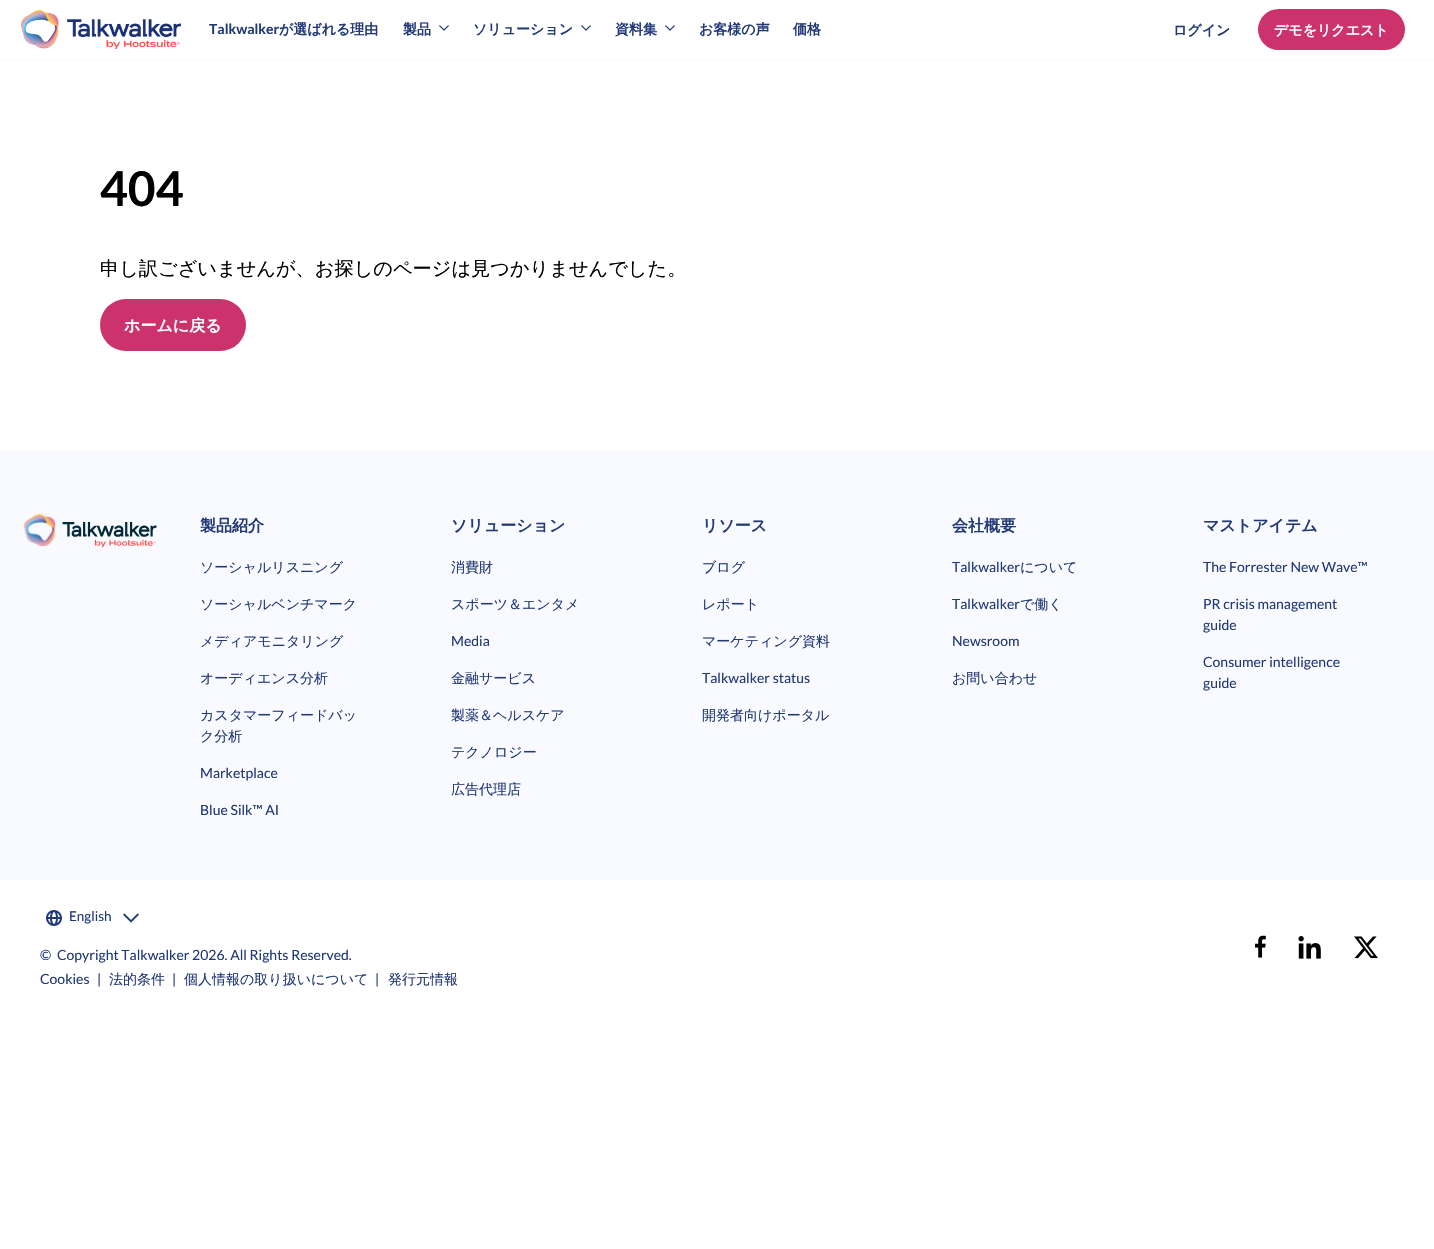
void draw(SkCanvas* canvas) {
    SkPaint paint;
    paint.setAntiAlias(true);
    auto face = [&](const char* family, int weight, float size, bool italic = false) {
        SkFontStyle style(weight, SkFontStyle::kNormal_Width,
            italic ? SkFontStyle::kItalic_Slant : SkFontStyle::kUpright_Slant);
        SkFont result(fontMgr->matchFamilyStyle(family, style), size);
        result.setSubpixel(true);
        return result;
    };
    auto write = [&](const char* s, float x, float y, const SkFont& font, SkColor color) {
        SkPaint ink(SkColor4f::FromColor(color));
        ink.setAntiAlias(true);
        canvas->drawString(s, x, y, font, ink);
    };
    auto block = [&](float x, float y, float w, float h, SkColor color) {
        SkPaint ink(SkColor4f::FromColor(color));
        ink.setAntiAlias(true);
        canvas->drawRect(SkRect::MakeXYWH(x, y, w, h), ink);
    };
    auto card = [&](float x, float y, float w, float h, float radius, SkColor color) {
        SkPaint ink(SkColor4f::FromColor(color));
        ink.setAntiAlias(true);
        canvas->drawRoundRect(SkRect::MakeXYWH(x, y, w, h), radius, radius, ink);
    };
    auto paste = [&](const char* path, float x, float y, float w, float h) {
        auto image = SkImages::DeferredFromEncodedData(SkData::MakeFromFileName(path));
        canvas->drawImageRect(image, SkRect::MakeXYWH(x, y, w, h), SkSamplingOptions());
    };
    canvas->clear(SK_ColorWHITE);
    block(0, 59, 1434, 1, SkColorSetRGB(249, 250, 255));
    paste("pic1.png", 21, 10, 160, 39);
    auto kFont1 = face("Lato", 700, 14);
    write("Talkwalker", 209, 34, kFont1, SkColorSetRGB(33, 57, 119));
    auto kFont2 = face("WenQuanYi Zen Hei", 700, 14);
    write("が選ばれる理由", 279, 34, kFont2, SkColorSetRGB(33, 57, 119));
    write("製品", 403, 34, kFont2, SkColorSetRGB(33, 57, 119));
    paste("pic2.png", 439, 25, 10, 6);
    write("ソリューション", 473, 34, kFont2, SkColorSetRGB(33, 57, 119));
    paste("pic2.png", 581, 25, 10, 6);
    write("資料集", 615, 34, kFont2, SkColorSetRGB(33, 57, 119));
    paste("pic2.png", 665, 25, 10, 6);
    write("お客様の声", 699, 34, kFont2, SkColorSetRGB(33, 57, 119));
    write("価格", 793, 34, kFont2, SkColorSetRGB(33, 57, 119));
    write("ログイン", 1173, 35, kFont2, SkColorSetRGB(33, 57, 119));
    card(1258, 9, 147, 41, 20.5f, SkColorSetRGB(204, 50, 107));
    write("デモをリクエスト", 1274, 35, kFont2, SK_ColorWHITE);
    auto kFont3 = face("Lato", 700, 48);
    write("404", 100, 206, kFont3, SK_ColorBLACK);
    auto kFont4 = face("WenQuanYi Zen Hei", 500, 19.2f);
    write("申し訳ございませんが、お探しのページは見つかりませんでした。", 100, 275, kFont4, SK_ColorBLACK);
    card(100, 299, 146, 52, 26, SkColorSetRGB(204, 50, 107));
    auto kFont5 = face("WenQuanYi Zen Hei", 700, 16);
    write("ホームに戻る", 124, 331, kFont5, SK_ColorWHITE);
    block(0, 451, 1434, 429, SkColorSetRGB(249, 250, 255));
    paste("pic3.png", 24, 514, 133, 34);
    write("製品紹介", 200, 531, kFont5, SkColorSetRGB(33, 57, 119));
    auto kFont6 = face("WenQuanYi Zen Hei", 500, 14);
    write("ソーシャルリスニング", 200, 572, kFont6, SkColorSetRGB(33, 57, 119));
    write("ソーシャルベンチマーク", 200, 609, kFont6, SkColorSetRGB(33, 57, 119));
    write("メディアモニタリング", 200, 646, kFont6, SkColorSetRGB(33, 57, 119));
    write("オーディエンス分析", 200, 683, kFont6, SkColorSetRGB(33, 57, 119));
    write("カスタマーフィードバッ", 200, 720, kFont6, SkColorSetRGB(33, 57, 119));
    write("ク分析", 200, 741, kFont6, SkColorSetRGB(33, 57, 119));
    auto kFont7 = face("Lato", 400, 14);
    write("Marketplace", 200, 778, kFont7, SkColorSetRGB(33, 57, 119));
    write("Blue Silk™ AI", 200, 815, kFont7, SkColorSetRGB(33, 57, 119));
    write("ソリューション", 451, 531, kFont5, SkColorSetRGB(33, 57, 119));
    write("消費財", 451, 572, kFont6, SkColorSetRGB(33, 57, 119));
    write("スポーツ＆エンタメ", 451, 609, kFont6, SkColorSetRGB(33, 57, 119));
    write("Media", 451, 646, kFont7, SkColorSetRGB(33, 57, 119));
    write("金融サービス", 451, 683, kFont6, SkColorSetRGB(33, 57, 119));
    write("製薬＆ヘルスケア", 451, 720, kFont6, SkColorSetRGB(33, 57, 119));
    write("テクノロジー", 451, 757, kFont6, SkColorSetRGB(33, 57, 119));
    write("広告代理店", 451, 794, kFont6, SkColorSetRGB(33, 57, 119));
    write("リソース", 702, 531, kFont5, SkColorSetRGB(33, 57, 119));
    write("ブログ", 702, 572, kFont6, SkColorSetRGB(33, 57, 119));
    write("レポート", 702, 609, kFont6, SkColorSetRGB(33, 57, 119));
    write("マーケティング資料", 702, 646, kFont6, SkColorSetRGB(33, 57, 119));
    write("Talkwalker status", 702, 683, kFont7, SkColorSetRGB(33, 57, 119));
    write("開発者向けポータル", 702, 720, kFont6, SkColorSetRGB(33, 57, 119));
    write("会社概要", 952, 531, kFont5, SkColorSetRGB(33, 57, 119));
    write("Talkwalker", 952, 572, kFont7, SkColorSetRGB(33, 57, 119));
    write("について", 1020, 572, kFont6, SkColorSetRGB(33, 57, 119));
    write("Talkwalker", 952, 609, kFont7, SkColorSetRGB(33, 57, 119));
    write("で働く", 1020, 609, kFont6, SkColorSetRGB(33, 57, 119));
    write("Newsroom", 952, 646, kFont7, SkColorSetRGB(33, 57, 119));
    write("お問い合わせ", 952, 683, kFont6, SkColorSetRGB(33, 57, 119));
    write("マストアイテム", 1203, 531, kFont5, SkColorSetRGB(33, 57, 119));
    write("The Forrester New Wave™", 1203, 572, kFont7, SkColorSetRGB(33, 57, 119));
    write("PR crisis management", 1203, 609, kFont7, SkColorSetRGB(33, 57, 119));
    write("guide", 1203, 630, kFont7, SkColorSetRGB(33, 57, 119));
    write("Consumer intelligence", 1203, 667, kFont7, SkColorSetRGB(33, 57, 119));
    write("guide", 1203, 688, kFont7, SkColorSetRGB(33, 57, 119));
    paste("pic4.png", 46, 910, 16, 16);
    auto kFont8 = face("Lato", 400, 13.5f);
    write("English", 69, 921, kFont8, SkColorSetRGB(33, 57, 119));
    paste("pic5.png", 123, 913, 16, 10);
    write("©", 40, 960, kFont7, SkColorSetRGB(33, 57, 119));
    write("Copyright Talkwalker 2026. All Rights Reserved.", 57, 960, kFont7, SkColorSetRGB(33, 57, 119));
    write("Cookies", 40, 984, kFont7, SkColorSetRGB(33, 57, 119));
    write("|", 97, 984, kFont7, SkColorSetRGB(33, 57, 119));
    write("法的条件", 109, 984, kFont6, SkColorSetRGB(33, 57, 119));
    write("|", 172, 984, kFont7, SkColorSetRGB(33, 57, 119));
    write("個人情報の取り扱いについて", 184, 984, kFont6, SkColorSetRGB(33, 57, 119));
    write("|", 375, 984, kFont7, SkColorSetRGB(33, 57, 119));
    write("発行元情報", 388, 984, kFont6, SkColorSetRGB(33, 57, 119));
    paste("pic6.png", 1255, 935, 11, 23);
    paste("pic7.png", 1298, 936, 23, 23);
    paste("pic8.png", 1354, 936, 24, 23);
}
